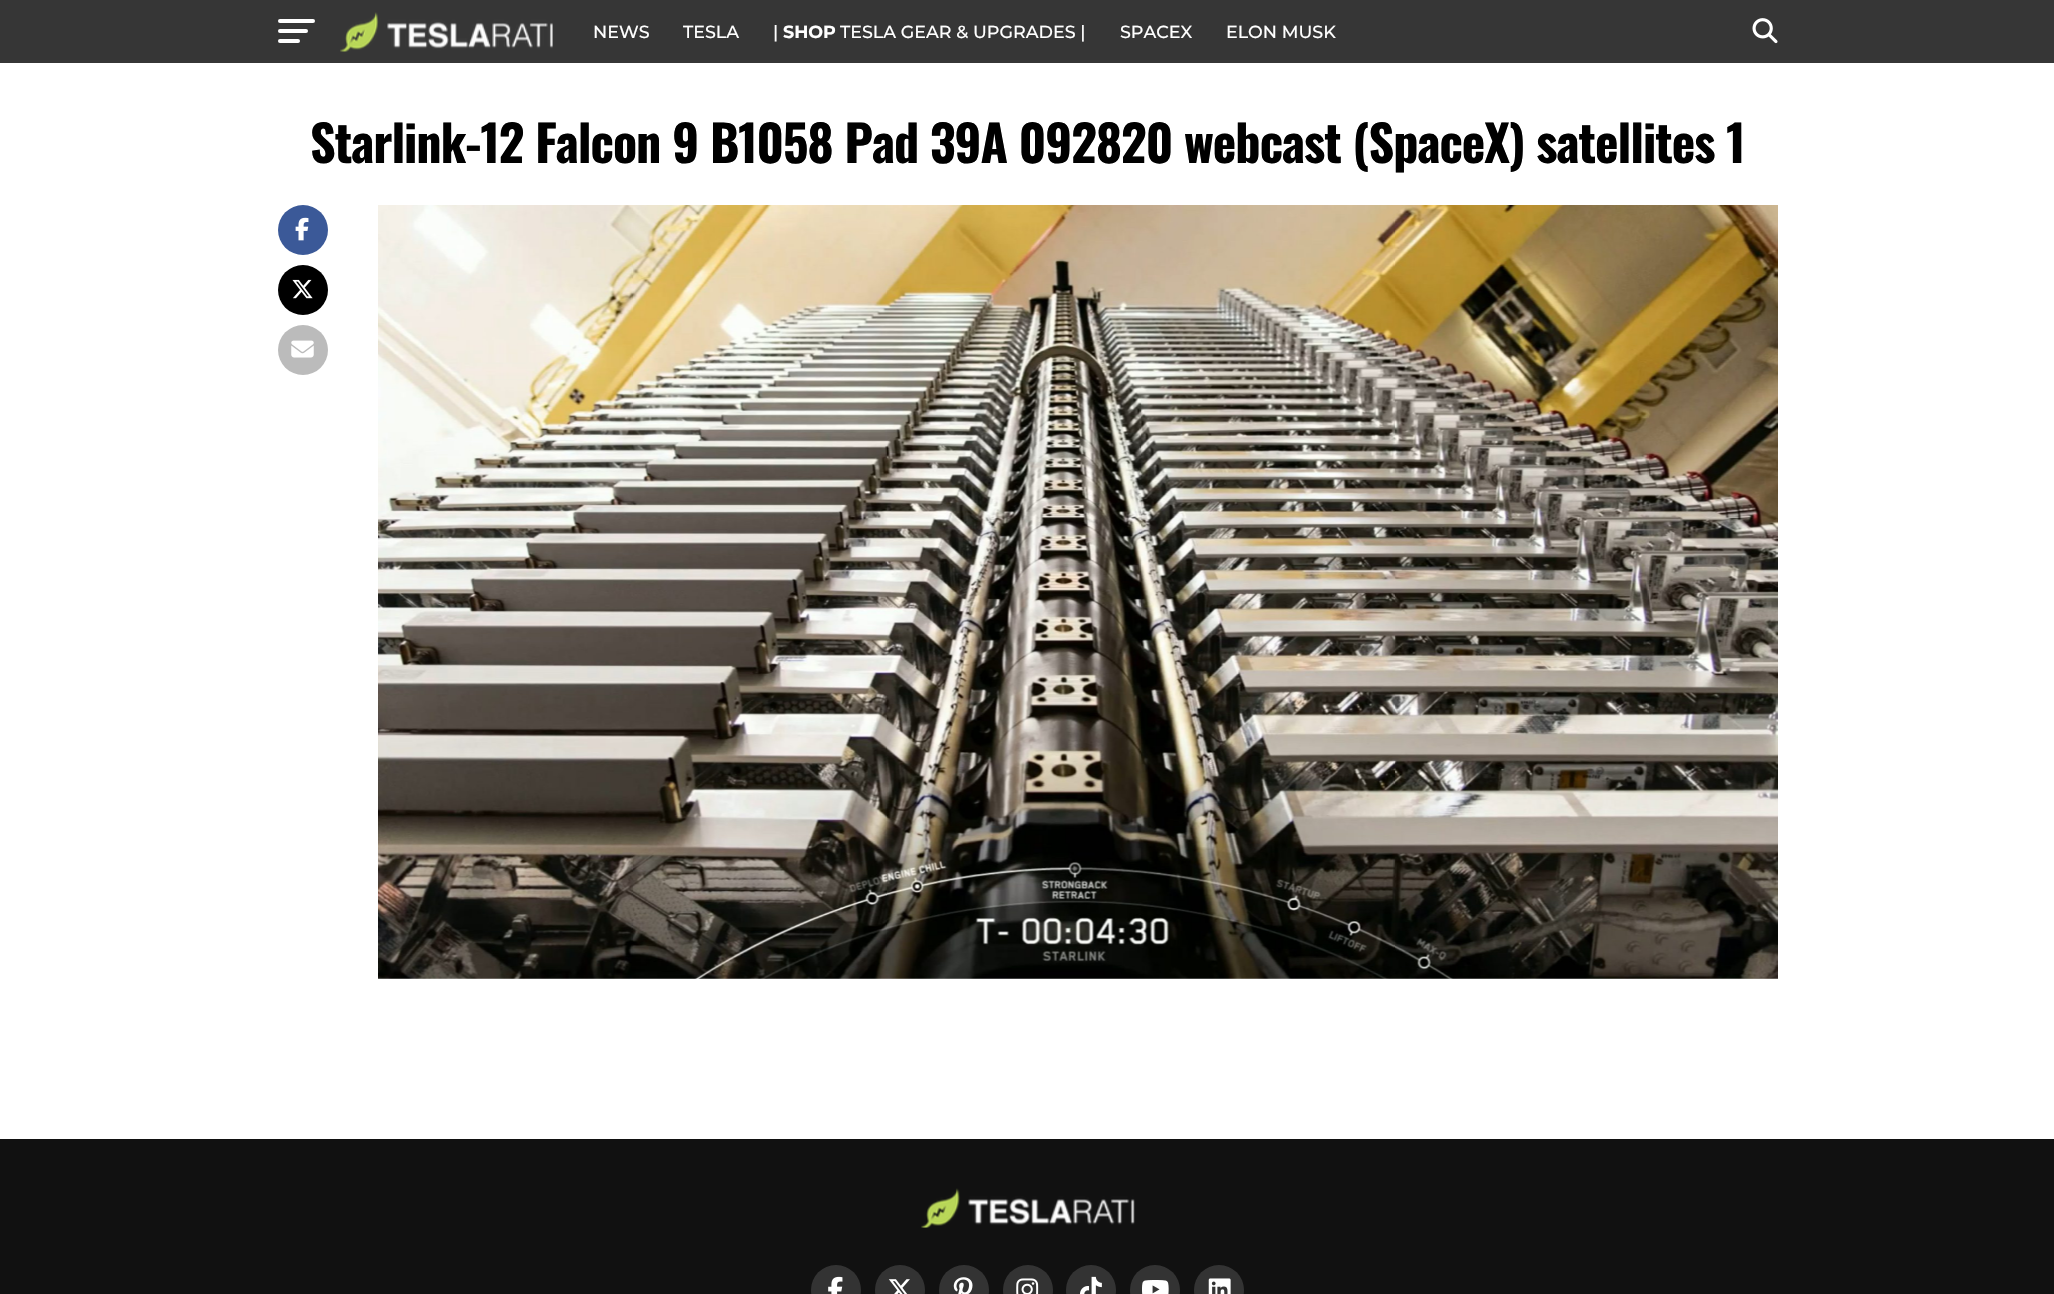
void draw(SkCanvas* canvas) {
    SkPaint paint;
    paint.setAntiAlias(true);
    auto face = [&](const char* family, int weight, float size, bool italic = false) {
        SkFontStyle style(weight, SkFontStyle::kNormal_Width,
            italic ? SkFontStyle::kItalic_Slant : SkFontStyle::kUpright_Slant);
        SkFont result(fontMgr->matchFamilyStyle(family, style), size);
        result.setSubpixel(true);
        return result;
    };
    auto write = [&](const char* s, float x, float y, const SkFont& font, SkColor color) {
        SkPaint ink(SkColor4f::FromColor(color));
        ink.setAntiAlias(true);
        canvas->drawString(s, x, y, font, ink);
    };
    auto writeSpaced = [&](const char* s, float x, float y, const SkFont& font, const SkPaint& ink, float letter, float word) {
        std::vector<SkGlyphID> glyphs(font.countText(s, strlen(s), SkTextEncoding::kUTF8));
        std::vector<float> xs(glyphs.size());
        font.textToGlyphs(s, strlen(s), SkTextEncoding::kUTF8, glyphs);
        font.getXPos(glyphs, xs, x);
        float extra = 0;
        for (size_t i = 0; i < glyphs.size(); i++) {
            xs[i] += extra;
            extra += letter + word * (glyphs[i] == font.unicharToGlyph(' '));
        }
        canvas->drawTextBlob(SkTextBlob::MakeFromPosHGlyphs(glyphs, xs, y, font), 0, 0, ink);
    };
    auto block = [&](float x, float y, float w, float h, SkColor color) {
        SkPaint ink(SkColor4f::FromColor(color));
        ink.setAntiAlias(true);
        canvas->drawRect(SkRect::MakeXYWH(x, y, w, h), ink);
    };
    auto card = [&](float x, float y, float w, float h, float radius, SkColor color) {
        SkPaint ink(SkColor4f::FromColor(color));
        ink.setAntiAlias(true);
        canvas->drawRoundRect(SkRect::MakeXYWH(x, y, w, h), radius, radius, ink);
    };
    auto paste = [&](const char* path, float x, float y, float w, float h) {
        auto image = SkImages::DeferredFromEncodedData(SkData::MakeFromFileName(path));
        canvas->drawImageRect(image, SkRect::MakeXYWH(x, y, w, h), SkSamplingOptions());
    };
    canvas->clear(SK_ColorWHITE);
    block(0, 0, 2054, 63, SkColorSetRGB(54, 54, 54));
    card(278, 19, 37, 4, 2, SK_ColorWHITE);
    card(278, 29, 30, 4, 2, SK_ColorWHITE);
    card(278, 39, 22, 4, 2, SK_ColorWHITE);
    paste("pic1.png", 340, 12, 213, 40);
    auto kFont1 = face("Montserrat", 500, 17.5f);
    write("NEWS", 593, 38, kFont1, SK_ColorWHITE);
    write("TESLA", 683, 38, kFont1, SK_ColorWHITE);
    write("|", 773, 38, kFont1, SK_ColorWHITE);
    auto kFont2 = face("Montserrat", 700, 17.5f);
    write("SHOP", 783, 38, kFont2, SK_ColorWHITE);
    write("TESLA GEAR & UPGRADES |", 840, 38, kFont1, SK_ColorWHITE);
    write("SPACEX", 1120, 38, kFont1, SK_ColorWHITE);
    write("ELON MUSK", 1226, 38, kFont1, SK_ColorWHITE);
    paste("pic2.png", 1752, 18, 26, 26);
    auto kFont3 = face("Oswald", 700, 50);
    paint.setColor(SK_ColorBLACK);
    writeSpaced("Starlink-12 Falcon 9 B1058 Pad 39A 092820 webcast (SpaceX) satellites 1", 310, 163, kFont3, paint, -1, 0);
    paint.setColor(SkColorSetRGB(59, 89, 152));
    canvas->drawCircle(303, 230, 25, paint);
    paste("pic3.png", 295, 217, 14, 24);
    paint.setColor(SK_ColorBLACK);
    canvas->drawCircle(303, 290, 25, paint);
    paste("pic4.png", 292, 279, 21, 20);
    paint.setColor(SkColorSetRGB(187, 187, 187));
    canvas->drawCircle(303, 350, 25, paint);
    paste("pic5.png", 291, 340, 23, 18);
    paste("pic6.png", 378, 205, 1400, 774);
    block(0, 1139, 2054, 155, SkColorSetRGB(17, 17, 17));
    paste("pic7.png", 921, 1188, 214, 40);
    paint.setColor(SkColorSetRGB(51, 51, 51));
    canvas->drawCircle(836, 1290, 25, paint);
    paste("pic8.png", 828, 1276, 15, 18);
    canvas->drawCircle(900, 1290, 25, paint);
    paste("pic9.png", 888, 1279, 22, 15);
    canvas->drawCircle(964, 1290, 25, paint);
    paste("pic10.png", 953, 1277, 20, 17);
    canvas->drawCircle(1028, 1290, 25, paint);
    paste("pic11.png", 1016, 1278, 23, 16);
    canvas->drawCircle(1091, 1290, 25, paint);
    paste("pic12.png", 1080, 1276, 22, 18);
    canvas->drawCircle(1155, 1290, 25, paint);
    paste("pic13.png", 1142, 1280, 27, 14);
    canvas->drawCircle(1219, 1290, 25, paint);
    paste("pic14.png", 1208, 1278, 23, 16);
}
